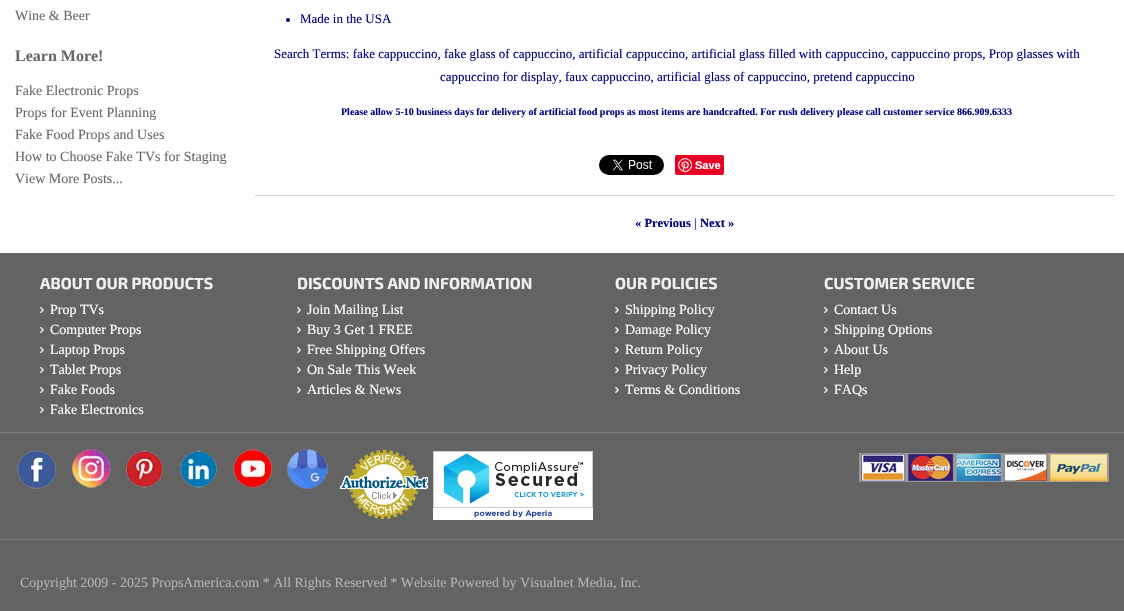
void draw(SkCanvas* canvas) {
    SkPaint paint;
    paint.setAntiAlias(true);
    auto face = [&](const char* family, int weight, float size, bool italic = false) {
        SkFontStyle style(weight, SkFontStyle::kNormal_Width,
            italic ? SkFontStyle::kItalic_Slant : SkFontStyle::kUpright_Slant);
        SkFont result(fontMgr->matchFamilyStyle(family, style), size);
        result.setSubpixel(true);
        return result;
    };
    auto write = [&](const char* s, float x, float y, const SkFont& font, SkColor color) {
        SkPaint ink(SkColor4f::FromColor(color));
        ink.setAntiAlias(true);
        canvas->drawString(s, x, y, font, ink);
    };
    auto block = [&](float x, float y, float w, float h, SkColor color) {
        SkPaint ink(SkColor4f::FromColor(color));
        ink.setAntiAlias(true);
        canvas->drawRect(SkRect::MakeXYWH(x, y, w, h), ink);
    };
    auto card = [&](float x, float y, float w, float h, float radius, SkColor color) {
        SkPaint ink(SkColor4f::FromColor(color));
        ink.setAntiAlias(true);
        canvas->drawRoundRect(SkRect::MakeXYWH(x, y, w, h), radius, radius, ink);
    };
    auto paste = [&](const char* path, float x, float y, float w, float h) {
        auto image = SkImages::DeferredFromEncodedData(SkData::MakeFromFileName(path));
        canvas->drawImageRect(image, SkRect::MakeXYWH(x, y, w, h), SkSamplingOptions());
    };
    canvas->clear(SK_ColorWHITE);
    auto kFont1 = face("Liberation Serif", 400, 14);
    write("Wine & Beer", 15, 20, kFont1, SkColorSetRGB(103, 103, 103));
    auto kFont2 = face("Liberation Serif", 700, 16);
    write("Learn More!", 15, 61, kFont2, SkColorSetRGB(103, 103, 103));
    write("Fake Electronic Props", 15, 95, kFont1, SkColorSetRGB(103, 103, 103));
    write("Props for Event Planning", 15, 117, kFont1, SkColorSetRGB(103, 103, 103));
    write("Fake Food Props and Uses", 15, 139, kFont1, SkColorSetRGB(103, 103, 103));
    write("How to Choose Fake TVs for Staging", 15, 161, kFont1, SkColorSetRGB(103, 103, 103));
    write("View More Posts...", 15, 183, kFont1, SkColorSetRGB(103, 103, 103));
    paint.setColor(SkColorSetRGB(0, 0, 128));
    canvas->drawCircle(288, 20, 2, paint);
    auto kFont3 = face("Liberation Serif", 400, 13);
    write("Made in the USA", 300, 23, kFont3, SkColorSetRGB(0, 0, 128));
    write("Search Terms: fake cappuccino, fake glass of cappuccino, artificial cappuccino, artificial glass filled with cappuccino, cappuccino props, Prop glasses with", 274, 58, kFont3, SkColorSetRGB(0, 0, 128));
    write("cappuccino for display, faux cappuccino, artificial glass of cappuccino, pretend cappuccino", 440, 81, kFont3, SkColorSetRGB(0, 0, 128));
    auto kFont4 = face("Liberation Serif", 700, 10);
    write("Please allow 5-10 business days for delivery of artificial food props as most items are handcrafted. For rush delivery please call customer service 866.909.6333", 341, 115, kFont4, SkColorSetRGB(0, 0, 128));
    paste("pic1.png", 599, 155, 65, 20);
    card(675, 155, 49, 20, 2, SkColorSetRGB(230, 0, 35));
    paste("pic2.png", 678, 158, 14, 14);
    auto kFont5 = face("Liberation Sans", 700, 11);
    write("Save", 695, 169, kFont5, SK_ColorWHITE);
    block(255, 195, 859, 1, SkColorSetRGB(204, 204, 204));
    auto kFont6 = face("Liberation Serif", 700, 12.5f);
    write("« Previous", 635, 227, kFont6, SkColorSetRGB(0, 0, 128));
    auto kFont7 = face("Liberation Serif", 400, 12.5f);
    write("|", 694, 227, kFont7, SkColorSetRGB(0, 0, 128));
    write("Next »", 700, 227, kFont6, SkColorSetRGB(0, 0, 128));
    block(0, 253, 1124, 358, SkColorSetRGB(99, 99, 99));
    auto kFont8 = face("Exo 2", 700, 16);
    write("ABOUT OUR PRODUCTS", 40, 289, kFont8, SkColorSetRGB(240, 240, 240));
    paste("pic3.png", 40, 307, 4, 6);
    write("Prop TVs", 50, 314, kFont1, SK_ColorWHITE);
    paste("pic3.png", 40, 327, 4, 6);
    write("Computer Props", 50, 334, kFont1, SK_ColorWHITE);
    paste("pic3.png", 40, 347, 4, 6);
    write("Laptop Props", 50, 354, kFont1, SK_ColorWHITE);
    paste("pic3.png", 40, 367, 4, 6);
    write("Tablet Props", 50, 374, kFont1, SK_ColorWHITE);
    paste("pic3.png", 40, 387, 4, 6);
    write("Fake Foods", 50, 394, kFont1, SK_ColorWHITE);
    paste("pic3.png", 40, 407, 4, 6);
    write("Fake Electronics", 50, 414, kFont1, SK_ColorWHITE);
    write("DISCOUNTS AND INFORMATION", 297, 289, kFont8, SkColorSetRGB(240, 240, 240));
    paste("pic3.png", 297, 307, 4, 6);
    write("Join Mailing List", 307, 314, kFont1, SK_ColorWHITE);
    paste("pic3.png", 297, 327, 4, 6);
    write("Buy 3 Get 1 FREE", 307, 334, kFont1, SK_ColorWHITE);
    paste("pic3.png", 297, 347, 4, 6);
    write("Free Shipping Offers", 307, 354, kFont1, SK_ColorWHITE);
    paste("pic3.png", 297, 367, 4, 6);
    write("On Sale This Week", 307, 374, kFont1, SK_ColorWHITE);
    paste("pic3.png", 297, 387, 4, 6);
    write("Articles & News", 307, 394, kFont1, SK_ColorWHITE);
    write("OUR POLICIES", 615, 289, kFont8, SkColorSetRGB(240, 240, 240));
    paste("pic3.png", 615, 307, 4, 6);
    write("Shipping Policy", 625, 314, kFont1, SK_ColorWHITE);
    paste("pic3.png", 615, 327, 4, 6);
    write("Damage Policy", 625, 334, kFont1, SK_ColorWHITE);
    paste("pic3.png", 615, 347, 4, 6);
    write("Return Policy", 625, 354, kFont1, SK_ColorWHITE);
    paste("pic3.png", 615, 367, 4, 6);
    write("Privacy Policy", 625, 374, kFont1, SK_ColorWHITE);
    paste("pic3.png", 615, 387, 4, 6);
    write("Terms & Conditions", 625, 394, kFont1, SK_ColorWHITE);
    write("CUSTOMER SERVICE", 824, 289, kFont8, SkColorSetRGB(240, 240, 240));
    paste("pic3.png", 824, 307, 4, 6);
    write("Contact Us", 834, 314, kFont1, SK_ColorWHITE);
    paste("pic3.png", 824, 327, 4, 6);
    write("Shipping Options", 834, 334, kFont1, SK_ColorWHITE);
    paste("pic3.png", 824, 347, 4, 6);
    write("About Us", 834, 354, kFont1, SK_ColorWHITE);
    paste("pic3.png", 824, 367, 4, 6);
    write("Help", 834, 374, kFont1, SK_ColorWHITE);
    paste("pic3.png", 824, 387, 4, 6);
    write("FAQs", 834, 394, kFont1, SK_ColorWHITE);
    block(0, 432, 1124, 1, SkColorSetRGB(129, 128, 128));
    block(0, 539, 1124, 1, SkColorSetRGB(129, 128, 128));
    paste("pic4.png", 17, 450, 39, 39);
    paste("pic5.png", 72, 449, 39, 39);
    paste("pic6.png", 126, 450, 37, 38);
    paste("pic7.png", 180, 450, 37, 38);
    paste("pic8.png", 233, 449, 39, 39);
    paste("pic9.png", 287, 449, 41, 40);
    paste("pic10.png", 340, 450, 88, 69);
    paste("pic11.png", 433, 451, 160, 69);
    paste("pic12.png", 859, 453, 250, 29);
    write("Copyright 2009 - 2025 PropsAmerica.com * All Rights Reserved * Website Powered by Visualnet Media, Inc.", 20, 587, kFont1, SkColorSetRGB(179, 179, 179));
}
